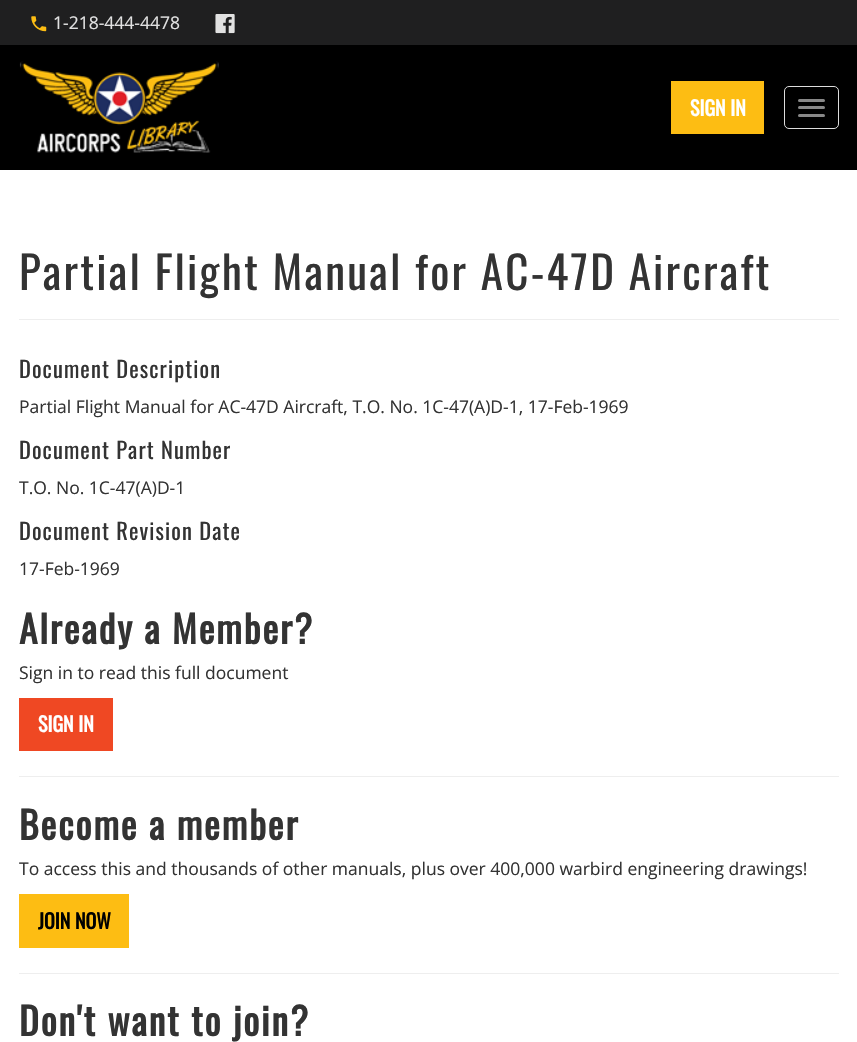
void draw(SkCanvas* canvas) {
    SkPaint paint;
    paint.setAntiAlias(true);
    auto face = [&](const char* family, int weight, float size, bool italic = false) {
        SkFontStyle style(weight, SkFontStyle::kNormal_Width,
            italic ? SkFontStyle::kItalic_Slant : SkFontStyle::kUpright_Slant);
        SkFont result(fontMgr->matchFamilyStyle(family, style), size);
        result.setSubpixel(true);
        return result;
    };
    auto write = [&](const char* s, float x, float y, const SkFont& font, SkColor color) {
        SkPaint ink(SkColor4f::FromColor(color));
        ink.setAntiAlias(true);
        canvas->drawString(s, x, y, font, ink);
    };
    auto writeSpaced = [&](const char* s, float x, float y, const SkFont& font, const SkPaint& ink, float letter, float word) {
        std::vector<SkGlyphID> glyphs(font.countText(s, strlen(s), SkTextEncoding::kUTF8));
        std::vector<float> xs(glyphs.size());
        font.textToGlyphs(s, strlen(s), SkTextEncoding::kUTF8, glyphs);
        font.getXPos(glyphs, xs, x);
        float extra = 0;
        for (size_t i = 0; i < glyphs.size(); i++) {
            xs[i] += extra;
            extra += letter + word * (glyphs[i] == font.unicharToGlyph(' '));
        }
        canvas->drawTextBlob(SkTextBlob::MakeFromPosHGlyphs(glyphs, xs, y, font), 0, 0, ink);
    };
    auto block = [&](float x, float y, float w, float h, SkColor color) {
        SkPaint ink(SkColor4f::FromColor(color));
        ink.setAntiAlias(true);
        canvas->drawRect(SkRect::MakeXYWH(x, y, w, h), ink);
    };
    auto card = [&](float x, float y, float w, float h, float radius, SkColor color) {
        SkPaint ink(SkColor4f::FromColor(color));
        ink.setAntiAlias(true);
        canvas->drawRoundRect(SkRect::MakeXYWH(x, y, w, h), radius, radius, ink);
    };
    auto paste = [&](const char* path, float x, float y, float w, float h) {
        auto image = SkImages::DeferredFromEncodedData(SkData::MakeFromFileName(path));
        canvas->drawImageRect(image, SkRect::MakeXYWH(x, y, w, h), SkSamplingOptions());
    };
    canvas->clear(SK_ColorWHITE);
    block(0, 45, 857, 125, SK_ColorBLACK);
    block(0, 0, 857, 45, SkColorSetRGB(31, 31, 32));
    paste("pic1.png", 31, 16, 16, 16);
    auto kFont1 = face("Open Sans", 400, 17.5f);
    write("1-218-444-4478", 53, 29, kFont1, SkColorSetRGB(225, 225, 225));
    paste("pic2.png", 215, 14, 20, 20);
    paste("pic3.png", 19, 61, 200, 92);
    block(671, 81, 93, 53, SkColorSetRGB(253, 189, 19));
    auto kFont2 = face("Oswald", 700, 20);
    write("SIGN IN", 690, 116, kFont2, SK_ColorWHITE);
    paint.setStyle(SkPaint::kStroke_Style);
    paint.setStrokeWidth(1);
    paint.setColor(SkColorSetRGB(221, 221, 221));
    canvas->drawRoundRect(SkRect::MakeXYWH(784.5f, 86.5f, 54, 42), 4.5f, 4.5f, paint);
    card(798, 99, 27, 3, 1.5f, SkColorSetRGB(136, 136, 136));
    card(798, 106, 27, 3, 1.5f, SkColorSetRGB(136, 136, 136));
    card(798, 114, 27, 3, 1.5f, SkColorSetRGB(136, 136, 136));
    block(19, 319, 820, 1, SkColorSetRGB(238, 238, 238));
    auto kFont3 = face("Oswald", 400, 45);
    paint.setStyle(SkPaint::kFill_Style);
    paint.setColor(SkColorSetRGB(51, 51, 51));
    writeSpaced("Partial Flight Manual for AC-47D Aircraft", 19, 290, kFont3, paint, 2.25f, 0);
    auto kFont4 = face("Oswald", 400, 22.5f);
    writeSpaced("Document Description", 19, 378, kFont4, paint, 1.1f, 0);
    write("Partial Flight Manual for AC-47D Aircraft, T.O. No. 1C-47(A)D-1, 17-Feb-1969", 19, 413, kFont1, SkColorSetRGB(51, 51, 51));
    writeSpaced("Document Part Number", 19, 459, kFont4, paint, 1.1f, 0);
    write("T.O. No. 1C-47(A)D-1", 19, 494, kFont1, SkColorSetRGB(51, 51, 51));
    writeSpaced("Document Revision Date", 19, 540, kFont4, paint, 1.1f, 0);
    write("17-Feb-1969", 19, 575, kFont1, SkColorSetRGB(51, 51, 51));
    auto kFont5 = face("Oswald", 700, 37.5f);
    writeSpaced("Already a Member?", 19, 644, kFont5, paint, 1.9f, 0);
    write("Sign in to read this full document", 19, 679, kFont1, SkColorSetRGB(51, 51, 51));
    block(19, 698, 94, 53, SkColorSetRGB(239, 72, 35));
    write("SIGN IN", 38, 732, kFont2, SK_ColorWHITE);
    block(19, 776, 820, 1, SkColorSetRGB(238, 238, 238));
    writeSpaced("Become a member", 19, 840, kFont5, paint, 1.9f, 0);
    write("To access this and thousands of other manuals, plus over 400,000 warbird engineering drawings!", 19, 875, kFont1, SkColorSetRGB(51, 51, 51));
    block(19, 894, 110, 54, SkColorSetRGB(253, 189, 19));
    write("JOIN NOW", 38, 929, kFont2, SK_ColorBLACK);
    block(19, 973, 820, 1, SkColorSetRGB(238, 238, 238));
    writeSpaced("Don't want to join?", 19, 1036, kFont5, paint, 1.9f, 0);
}
